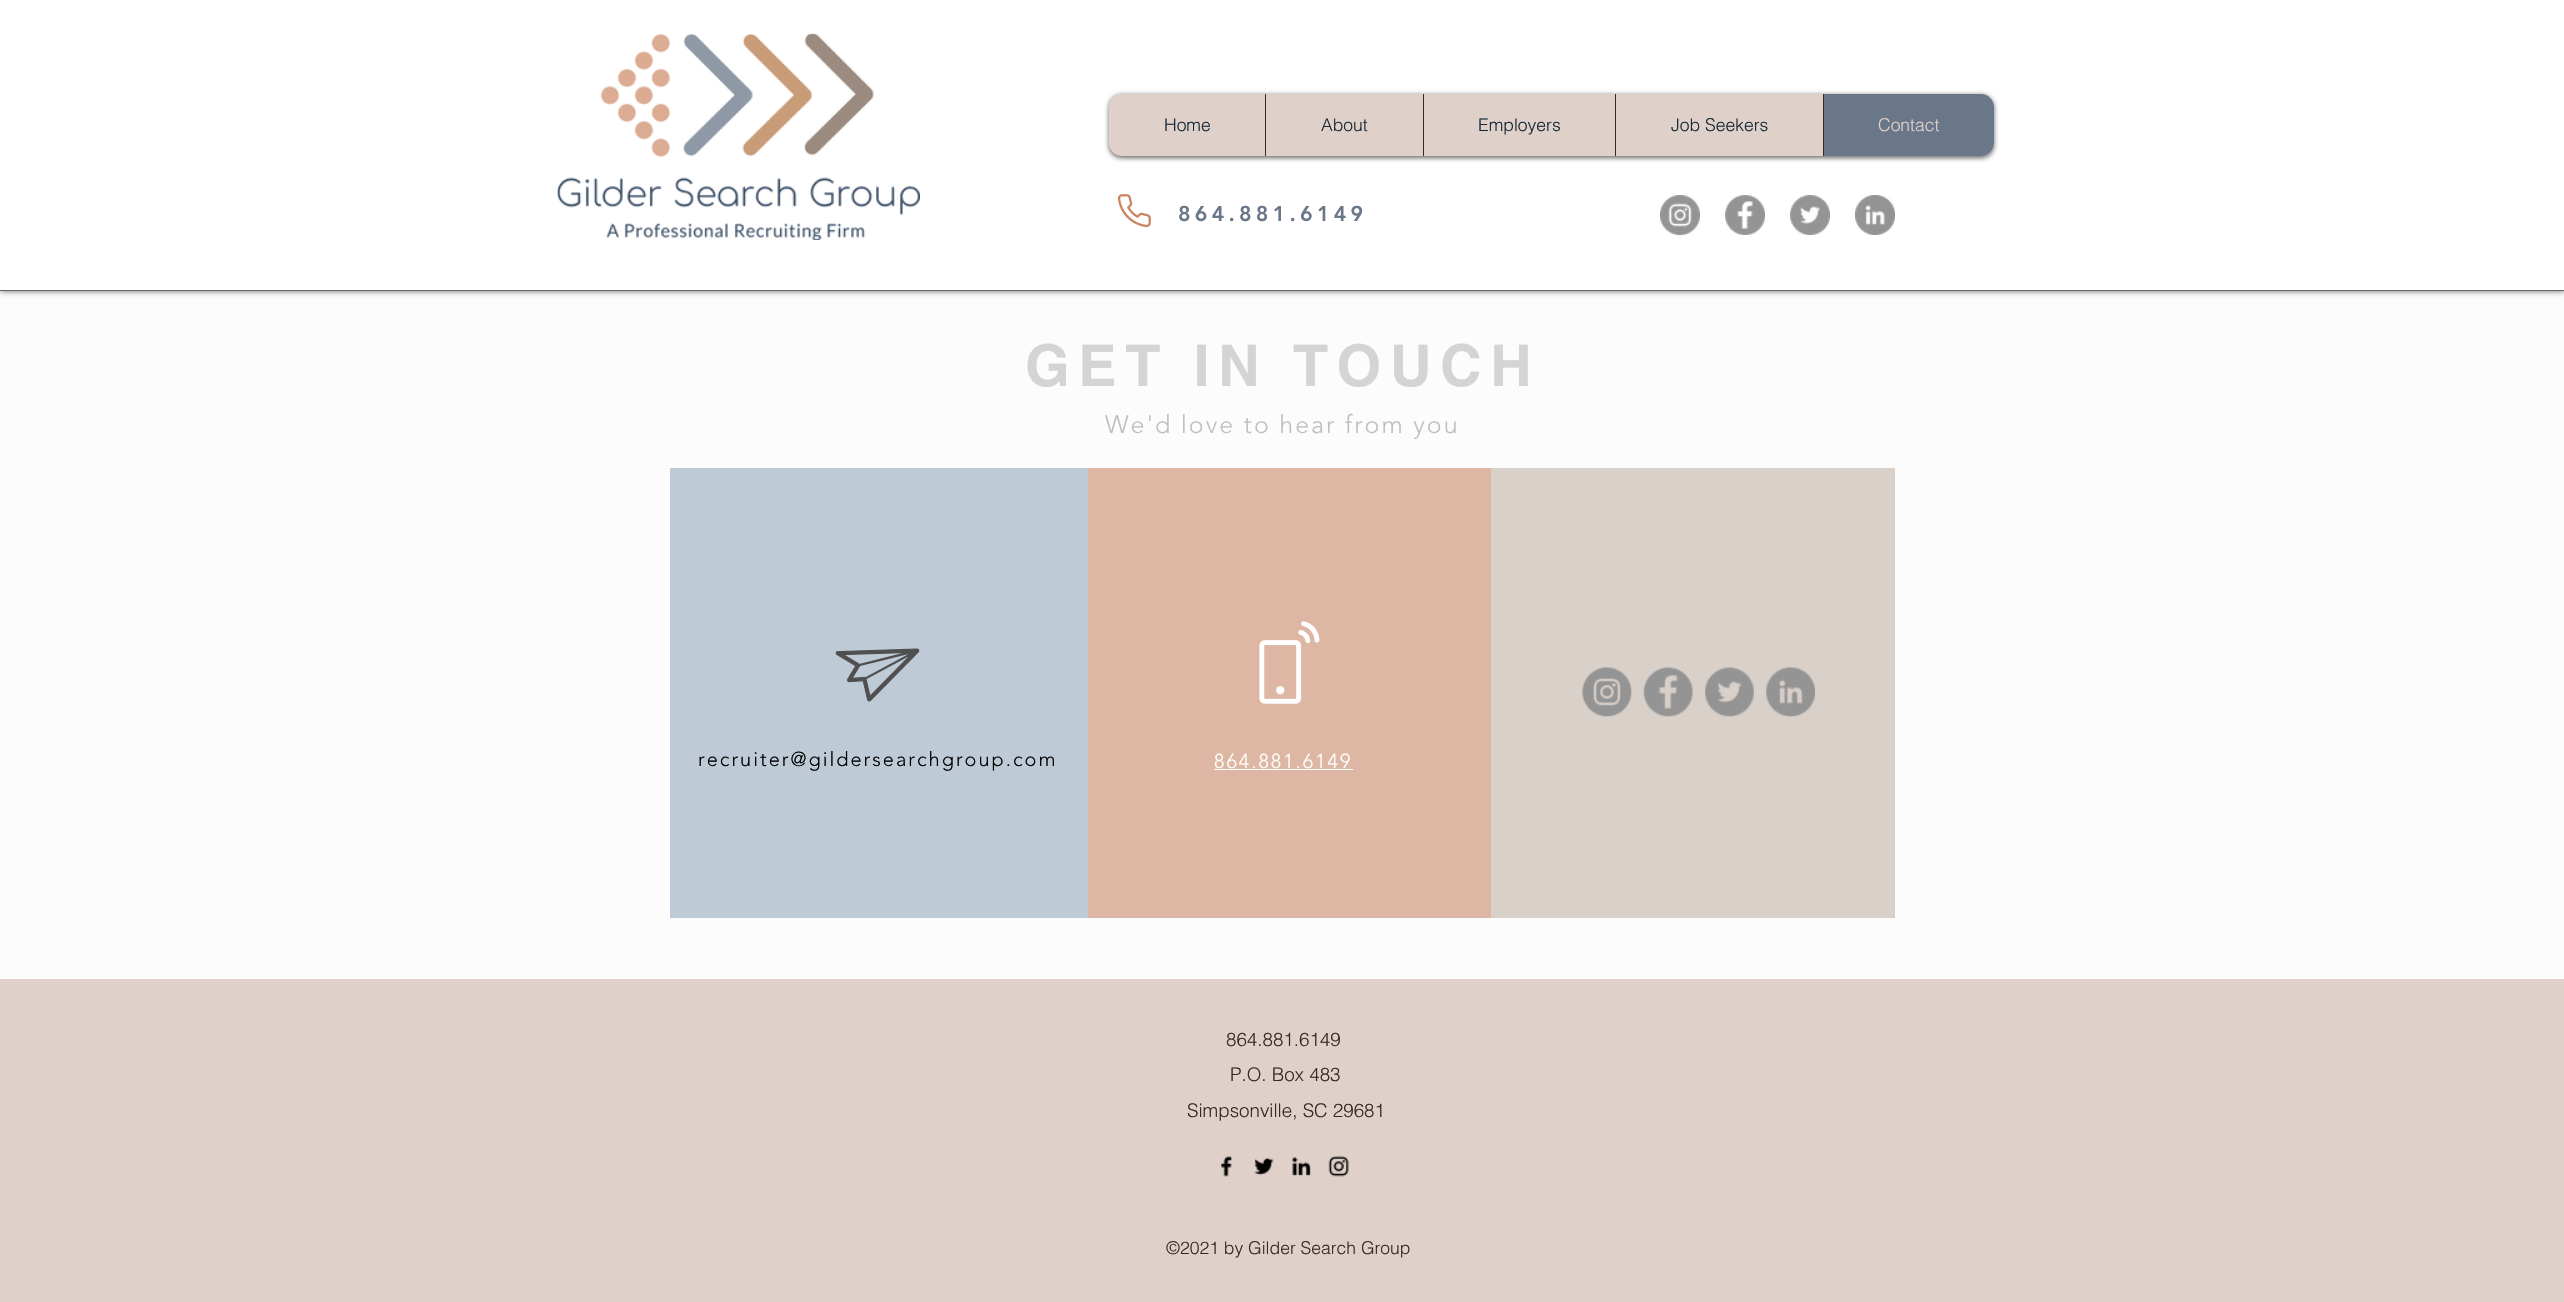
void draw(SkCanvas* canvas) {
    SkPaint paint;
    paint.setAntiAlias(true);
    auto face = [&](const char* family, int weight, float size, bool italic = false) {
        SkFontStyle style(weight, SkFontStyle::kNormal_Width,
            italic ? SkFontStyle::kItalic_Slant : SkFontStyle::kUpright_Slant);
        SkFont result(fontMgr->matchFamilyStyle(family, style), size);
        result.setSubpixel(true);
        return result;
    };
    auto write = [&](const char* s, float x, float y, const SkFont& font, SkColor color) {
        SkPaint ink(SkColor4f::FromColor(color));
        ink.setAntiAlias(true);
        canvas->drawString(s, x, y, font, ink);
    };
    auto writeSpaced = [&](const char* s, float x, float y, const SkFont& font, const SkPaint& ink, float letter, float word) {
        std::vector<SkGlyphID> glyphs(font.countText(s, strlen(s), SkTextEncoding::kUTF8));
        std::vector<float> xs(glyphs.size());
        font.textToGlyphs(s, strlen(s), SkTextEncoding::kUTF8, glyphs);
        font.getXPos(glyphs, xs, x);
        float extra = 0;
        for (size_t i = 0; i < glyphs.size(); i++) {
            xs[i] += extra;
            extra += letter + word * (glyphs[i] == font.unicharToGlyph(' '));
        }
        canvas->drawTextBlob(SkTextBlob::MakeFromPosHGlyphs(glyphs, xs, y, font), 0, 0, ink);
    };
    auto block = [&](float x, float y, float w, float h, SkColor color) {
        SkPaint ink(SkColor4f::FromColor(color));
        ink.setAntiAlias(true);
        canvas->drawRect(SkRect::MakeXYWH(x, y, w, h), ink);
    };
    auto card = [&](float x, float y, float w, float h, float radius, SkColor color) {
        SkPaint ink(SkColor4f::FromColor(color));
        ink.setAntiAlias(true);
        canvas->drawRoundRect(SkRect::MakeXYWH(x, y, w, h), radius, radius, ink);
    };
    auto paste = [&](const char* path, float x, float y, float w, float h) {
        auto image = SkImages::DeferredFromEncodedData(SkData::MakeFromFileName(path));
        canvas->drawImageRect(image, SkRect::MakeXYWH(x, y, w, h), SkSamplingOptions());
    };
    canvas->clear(SkColorSetRGB(223, 209, 202));
    block(0, 291, 2564, 688, SkColorSetRGB(252, 252, 252));
    paint.setColor(SkColorSetARGB(153, 0, 0, 0));
    paint.setMaskFilter(SkMaskFilter::MakeBlur(kNormal_SkBlurStyle, 3));
    canvas->drawRect(SkRect::MakeXYWH(0, 0, 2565, 291), paint);
    paint.setMaskFilter(nullptr);
    block(0, 0, 2564, 290, SK_ColorWHITE);
    block(0, 290, 2564, 1, SkColorSetRGB(102, 102, 102));
    paste("pic1.png", 557, 33, 363, 207);
    paint.setMaskFilter(SkMaskFilter::MakeBlur(kNormal_SkBlurStyle, 2.5f));
    canvas->drawRoundRect(SkRect::MakeXYWH(1109, 95, 885, 63), 13, 13, paint);
    paint.setMaskFilter(nullptr);
    card(1109, 94, 885, 62, 13, SkColorSetRGB(223, 209, 202));
    auto kFont1 = face("helvetica", 300, 17.5f);
    write("Home", 1164, 131, kFont1, SkColorSetRGB(23, 41, 53));
    block(1265, 94, 1, 62, SkColorSetRGB(53, 43, 38));
    write("About", 1321, 131, kFont1, SkColorSetRGB(23, 41, 53));
    block(1423, 94, 1, 62, SkColorSetRGB(53, 43, 38));
    write("Employers", 1478, 131, kFont1, SkColorSetRGB(23, 41, 53));
    block(1615, 94, 1, 62, SkColorSetRGB(53, 43, 38));
    write("Job Seekers", 1671, 131, kFont1, SkColorSetRGB(23, 41, 53));
    paint.setColor(SkColorSetRGB(105, 119, 136));
    canvas->drawPath(SkPathBuilder().moveTo(1823, 94).lineTo(1981, 94).cubicTo(1988, 94, 1994, 100, 1994, 107).lineTo(1994, 143).cubicTo(1994, 150, 1988, 156, 1981, 156).lineTo(1823, 156).close().detach(), paint);
    block(1823, 94, 1, 62, SkColorSetRGB(53, 43, 38));
    write("Contact", 1878, 131, kFont1, SkColorSetRGB(223, 209, 202));
    paste("pic2.png", 1117, 194, 34, 34);
    auto kFont2 = face("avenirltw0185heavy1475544", 900, 21.25f);
    writeSpaced("864.881.6149", 1178, 221, kFont2, paint, 4.25f, 0);
    paste("pic3.png", 1660, 195, 40, 40);
    paste("pic4.png", 1725, 195, 40, 40);
    paste("pic5.png", 1790, 195, 40, 40);
    paste("pic6.png", 1855, 195, 40, 40);
    auto kFont3 = face("helvetica", 700, 57.5f);
    paint.setColor(SkColorSetRGB(212, 212, 212));
    writeSpaced("GET IN TOUCH", 1025, 386, kFont3, paint, 8.6f, 0);
    auto kFont4 = face("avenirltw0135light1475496", 300, 25);
    paint.setColor(SkColorSetRGB(191, 191, 191));
    writeSpaced("We'd love to hear from you", 1105, 433, kFont4, paint, 2, 0);
    block(670, 468, 418, 450, SkColorSetRGB(191, 202, 215));
    paste("pic7.png", 835, 648, 85, 54);
    auto kFont5 = face("avenirltw0135light1475496", 300, 20);
    paint.setColor(SK_ColorBLACK);
    writeSpaced("recruiter@gildersearchgroup.com", 698, 766, kFont5, paint, 2, 0);
    block(1088, 468, 403, 450, SkColorSetRGB(221, 183, 163));
    paste("pic8.png", 1259, 621, 61, 83);
    paint.setColor(SK_ColorWHITE);
    writeSpaced("864.881.6149", 1214, 768, kFont5, paint, 2, 0);
    block(1214, 769, 139, 1, SK_ColorWHITE);
    block(1491, 468, 404, 450, SkColorSetRGB(217, 208, 201));
    paste("pic9.png", 1582, 667, 50, 50);
    paste("pic10.png", 1643, 667, 50, 50);
    paste("pic11.png", 1705, 667, 49, 50);
    paste("pic12.png", 1766, 667, 49, 50);
    auto kFont6 = face("helvetica", 300, 18.75f);
    write("864.881.6149", 1226, 1046, kFont6, SkColorSetRGB(53, 43, 38));
    write("P.O. Box 483", 1230, 1081, kFont6, SkColorSetRGB(53, 43, 38));
    write("Simpsonville, SC 29681", 1187, 1117, kFont6, SkColorSetRGB(53, 43, 38));
    paste("pic13.png", 1221, 1156, 11, 21);
    paste("pic14.png", 1254, 1157, 20, 19);
    paste("pic15.png", 1292, 1157, 19, 19);
    paste("pic16.png", 1328, 1156, 21, 21);
    write("©2021 by Gilder Search Group", 1166, 1254, kFont1, SkColorSetRGB(53, 43, 38));
}
